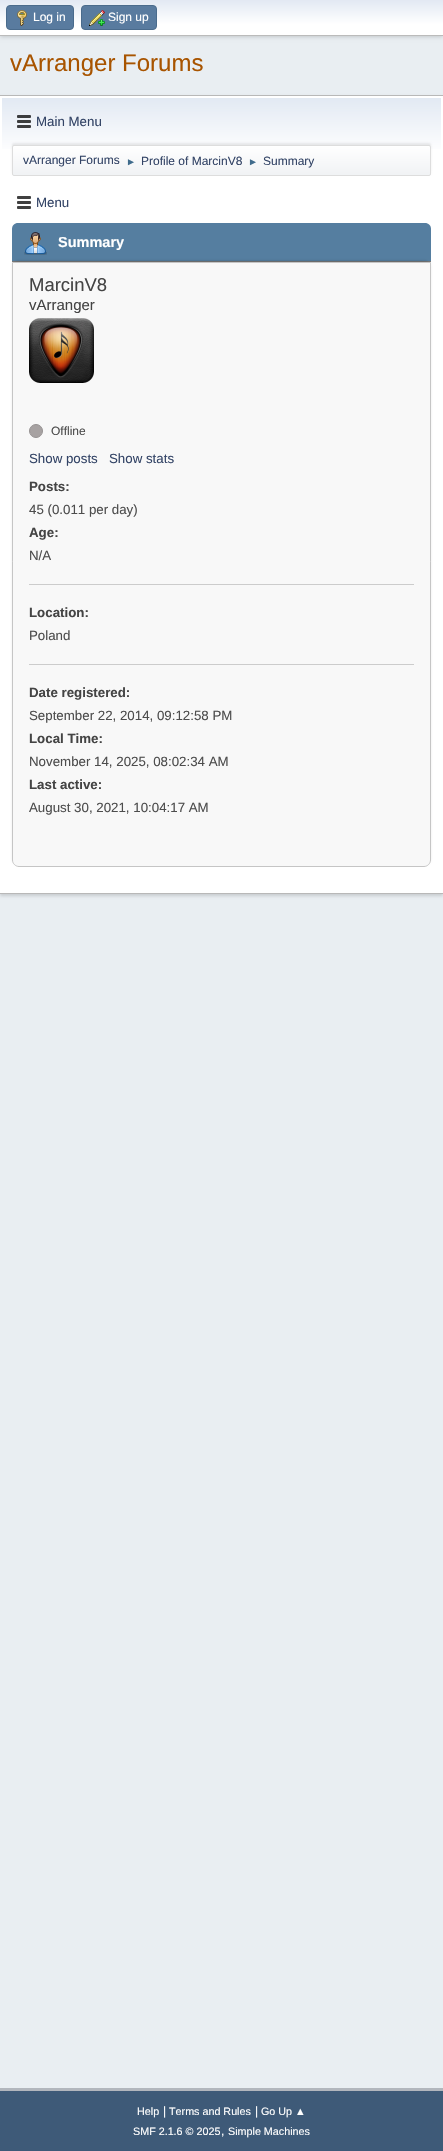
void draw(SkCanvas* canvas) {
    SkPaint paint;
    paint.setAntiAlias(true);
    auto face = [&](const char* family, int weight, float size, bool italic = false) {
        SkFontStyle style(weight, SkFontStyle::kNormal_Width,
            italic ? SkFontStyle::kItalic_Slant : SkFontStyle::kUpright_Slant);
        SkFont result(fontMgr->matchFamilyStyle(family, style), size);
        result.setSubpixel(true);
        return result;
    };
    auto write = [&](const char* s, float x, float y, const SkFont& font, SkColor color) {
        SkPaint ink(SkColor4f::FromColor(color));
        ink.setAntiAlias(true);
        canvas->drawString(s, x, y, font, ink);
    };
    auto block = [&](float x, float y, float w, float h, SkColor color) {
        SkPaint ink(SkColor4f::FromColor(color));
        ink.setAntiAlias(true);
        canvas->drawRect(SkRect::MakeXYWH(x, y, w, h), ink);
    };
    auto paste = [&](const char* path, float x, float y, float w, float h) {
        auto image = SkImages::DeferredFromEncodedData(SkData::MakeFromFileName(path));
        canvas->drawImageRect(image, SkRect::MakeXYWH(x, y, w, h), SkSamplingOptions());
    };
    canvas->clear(SkColorSetRGB(233, 238, 242));
    paint.setColor(SkColorSetARGB(41, 0, 0, 0));
    paint.setMaskFilter(SkMaskFilter::MakeBlur(kNormal_SkBlurStyle, 2));
    canvas->drawRect(SkRect::MakeXYWH(0, 1, 443, 36), paint);
    paint.setMaskFilter(nullptr);
    {
        const SkColor colors[] = {SkColorSetRGB(226, 233, 243), SK_ColorWHITE};
        const float stops[] = {0, 0.7f};
        const SkPoint ends[] = {{222, 0}, {222, 35}};
        paint.setShader(SkGradientShader::MakeLinear(ends, colors, stops, 2, SkTileMode::kClamp));
        paint.setAlpha(255);
    }
    canvas->drawRect(SkRect::MakeXYWH(0, 0, 443, 35), paint);
    block(0, 35, 443, 1, SkColorSetRGB(187, 187, 187));
    paint.setShader(nullptr);
    paint.setColor(SkColorSetRGB(89, 123, 159));
    canvas->drawRoundRect(SkRect::MakeXYWH(6.5f, 5.5f, 67, 24), 3.5f, 3.5f, paint);
    paint.setStyle(SkPaint::kStroke_Style);
    paint.setStrokeWidth(1);
    paint.setColor(SkColorSetRGB(74, 107, 140));
    canvas->drawRoundRect(SkRect::MakeXYWH(6.5f, 5.5f, 67, 24), 3.5f, 3.5f, paint);
    paste("pic1.png", 17, 10, 10, 16);
    auto kFont1 = face("Liberation Sans", 400, 12);
    write("Log in", 33, 21, kFont1, SK_ColorWHITE);
    paint.setStyle(SkPaint::kFill_Style);
    paint.setColor(SkColorSetRGB(89, 123, 159));
    canvas->drawRoundRect(SkRect::MakeXYWH(81.5f, 5.5f, 75, 24), 3.5f, 3.5f, paint);
    paint.setStyle(SkPaint::kStroke_Style);
    paint.setColor(SkColorSetRGB(74, 107, 140));
    canvas->drawRoundRect(SkRect::MakeXYWH(81.5f, 5.5f, 75, 24), 3.5f, 3.5f, paint);
    paste("pic2.png", 89, 10, 16, 16);
    write("Sign up", 108, 21, kFont1, SK_ColorWHITE);
    auto kFont2 = face("Liberation Sans", 400, 24);
    write("vArranger Forums", 10, 71, kFont2, SkColorSetRGB(168, 84, 0));
    paint.setStyle(SkPaint::kFill_Style);
    paint.setColor(SkColorSetARGB(36, 0, 0, 0));
    paint.setMaskFilter(SkMaskFilter::MakeBlur(kNormal_SkBlurStyle, 1.5f));
    canvas->drawRect(SkRect::MakeXYWH(0, 97, 443, 799), paint);
    paint.setMaskFilter(nullptr);
    block(0, 96, 443, 797, SK_ColorWHITE);
    block(0, 95, 443, 1, SkColorSetRGB(184, 184, 184));
    block(0, 893, 443, 1, SkColorSetRGB(184, 184, 184));
    {
        const SkColor colors[] = {SkColorSetRGB(226, 233, 243), SK_ColorWHITE};
        const float stops[] = {0, 0.7f};
        const SkPoint ends[] = {{222, 98}, {222, 178}};
        paint.setShader(SkGradientShader::MakeLinear(ends, colors, stops, 2, SkTileMode::kClamp));
        paint.setAlpha(255);
    }
    canvas->drawRect(SkRect::MakeXYWH(2, 98, 439, 51), paint);
    paste("pic3.png", 17, 115, 14, 13);
    auto kFont3 = face("Liberation Sans", 400, 13.3f);
    write("Main Menu", 36, 126, kFont3, SkColorSetRGB(51, 68, 102));
    paint.setShader(nullptr);
    paint.setColor(SkColorSetARGB(20, 0, 0, 0));
    paint.setMaskFilter(SkMaskFilter::MakeBlur(kNormal_SkBlurStyle, 1));
    canvas->drawRoundRect(SkRect::MakeXYWH(12, 143, 419, 31), 2, 2, paint);
    paint.setMaskFilter(nullptr);
    canvas->save();
    canvas->clipPath(SkPathBuilder().moveTo(14, 145).lineTo(429, 145).cubicTo(430, 145, 431, 146, 431, 147).lineTo(431, 174).cubicTo(431, 175, 430, 176, 429, 176).lineTo(14, 176).cubicTo(13, 176, 12, 175, 12, 174).lineTo(12, 147).cubicTo(12, 146, 13, 145, 14, 145).close().detach(), true);
    {
        const SkColor colors[] = {SK_ColorWHITE, SkColorSetRGB(241, 243, 245)};
        const float stops[] = {0, 0.95f};
        const SkPoint ends[] = {{222, 146}, {222, 175}};
        paint.setShader(SkGradientShader::MakeLinear(ends, colors, stops, 2, SkTileMode::kClamp));
        paint.setAlpha(255);
    }
    canvas->drawRect(SkRect::MakeXYWH(12, 146, 419, 29), paint);
    canvas->restore();
    paint.setStyle(SkPaint::kStroke_Style);
    paint.setShader(nullptr);
    paint.setColor(SkColorSetRGB(221, 221, 221));
    canvas->drawRoundRect(SkRect::MakeXYWH(12.5f, 145.5f, 418, 30), 1.5f, 1.5f, paint);
    write("vArranger Forums", 23, 164, kFont1, SkColorSetRGB(51, 68, 102));
    auto kFont4 = face("Liberation Sans", 400, 10);
    write("►", 126, 165, kFont4, SkColorSetRGB(63, 107, 140));
    write("Profile of MarcinV8", 141, 165, kFont1, SkColorSetRGB(51, 68, 102));
    write("►", 248, 165, kFont4, SkColorSetRGB(63, 107, 140));
    write("Summary", 263, 165, kFont1, SkColorSetRGB(51, 68, 102));
    paste("pic4.png", 17, 196, 14, 13);
    write("Menu", 36, 207, kFont3, SkColorSetRGB(51, 68, 102));
    paint.setStyle(SkPaint::kFill_Style);
    paint.setColor(SkColorSetRGB(85, 126, 160));
    canvas->drawPath(SkPathBuilder().moveTo(18, 223).lineTo(425, 223).cubicTo(428.5f, 223, 431, 225.5f, 431, 229).lineTo(431, 262).lineTo(12, 262).lineTo(12, 229).cubicTo(12, 225.5f, 14.5f, 223, 18, 223).close().detach(), paint);
    block(12, 261, 419, 1, SkColorSetRGB(119, 119, 119));
    paste("pic5.png", 24, 232, 23, 23);
    auto kFont5 = face("Liberation Sans", 700, 14.5f);
    write("Summary", 58, 247, kFont5, SK_ColorWHITE);
    paint.setColor(SkColorSetARGB(26, 0, 0, 0));
    paint.setMaskFilter(SkMaskFilter::MakeBlur(kNormal_SkBlurStyle, 1));
    canvas->drawRoundRect(SkRect::MakeXYWH(12, 260, 419, 605), 7, 7, paint);
    paint.setMaskFilter(nullptr);
    paint.setColor(SkColorSetRGB(248, 248, 248));
    canvas->drawPath(SkPathBuilder().moveTo(12.5f, 262.5f).lineTo(430.5f, 262.5f).lineTo(430.5f, 860).cubicTo(430.5f, 863.5f, 427.5f, 866.5f, 424, 866.5f).lineTo(19, 866.5f).cubicTo(15.5f, 866.5f, 12.5f, 863.5f, 12.5f, 860).close().detach(), paint);
    paint.setStyle(SkPaint::kStroke_Style);
    paint.setColor(SkColorSetRGB(197, 197, 197));
    canvas->drawPath(SkPathBuilder().moveTo(12.5f, 262.5f).lineTo(430.5f, 262.5f).lineTo(430.5f, 860).cubicTo(430.5f, 863.5f, 427.5f, 866.5f, 424, 866.5f).lineTo(19, 866.5f).cubicTo(15.5f, 866.5f, 12.5f, 863.5f, 12.5f, 860).close().detach(), paint);
    auto kFont6 = face("Liberation Sans", 400, 18.5f);
    write("MarcinV8", 29, 291, kFont6, SkColorSetRGB(68, 68, 68));
    auto kFont7 = face("Liberation Sans", 400, 15);
    write("vArranger", 29, 310, kFont7, SkColorSetRGB(68, 68, 68));
    paste("pic6.png", 29, 318, 65, 65);
    paint.setStyle(SkPaint::kFill_Style);
    paint.setColor(SkColorSetRGB(167, 162, 162));
    canvas->drawCircle(36, 431, 6.5f, paint);
    paint.setStyle(SkPaint::kStroke_Style);
    paint.setColor(SkColorSetRGB(150, 146, 146));
    canvas->drawCircle(36, 431, 6.5f, paint);
    write("Offline", 51, 435, kFont1, SkColorSetRGB(77, 77, 77));
    write("Show posts", 29, 463, kFont3, SkColorSetRGB(51, 68, 102));
    write("Show stats", 109, 463, kFont3, SkColorSetRGB(51, 68, 102));
    block(29, 584, 385, 1, SkColorSetRGB(204, 204, 204));
    auto kFont8 = face("Liberation Sans", 700, 13.3f);
    write("Posts:", 29, 491, kFont8, SkColorSetRGB(68, 68, 68));
    write("45 (0.011 per day)", 29, 514, kFont3, SkColorSetRGB(77, 77, 77));
    write("Age:", 29, 537, kFont8, SkColorSetRGB(68, 68, 68));
    write("N/A", 29, 560, kFont3, SkColorSetRGB(77, 77, 77));
    block(29, 664, 385, 1, SkColorSetRGB(204, 204, 204));
    write("Location:", 29, 617, kFont8, SkColorSetRGB(68, 68, 68));
    write("Poland", 29, 640, kFont3, SkColorSetRGB(77, 77, 77));
    write("Date registered:", 29, 697, kFont8, SkColorSetRGB(68, 68, 68));
    write("September 22, 2014, 09:12:58 PM", 29, 720, kFont3, SkColorSetRGB(77, 77, 77));
    write("Local Time:", 29, 743, kFont8, SkColorSetRGB(68, 68, 68));
    write("November 14, 2025, 08:02:34 AM", 29, 766, kFont3, SkColorSetRGB(77, 77, 77));
    write("Last active:", 29, 789, kFont8, SkColorSetRGB(68, 68, 68));
    write("August 30, 2021, 10:04:17 AM", 29, 812, kFont3, SkColorSetRGB(77, 77, 77));
    block(0, 2091, 443, 60, SkColorSetRGB(62, 90, 120));
    block(0, 2088, 443, 3, SkColorSetRGB(178, 182, 189));
    auto kFont9 = face("Liberation Sans", 400, 10.75f);
    write("Help", 137, 2115, kFont9, SK_ColorWHITE);
    write("|", 163, 2115, kFont1, SK_ColorWHITE);
    write("Terms and Rules", 169, 2115, kFont9, SK_ColorWHITE);
    write("|", 255, 2115, kFont1, SK_ColorWHITE);
    write("Go Up ▲", 261, 2115, kFont9, SK_ColorWHITE);
    write("SMF 2.1.6 © 2025", 133, 2135, kFont9, SK_ColorWHITE);
    write(",", 221, 2135, kFont1, SK_ColorWHITE);
    write("Simple Machines", 228, 2135, kFont9, SK_ColorWHITE);
}
